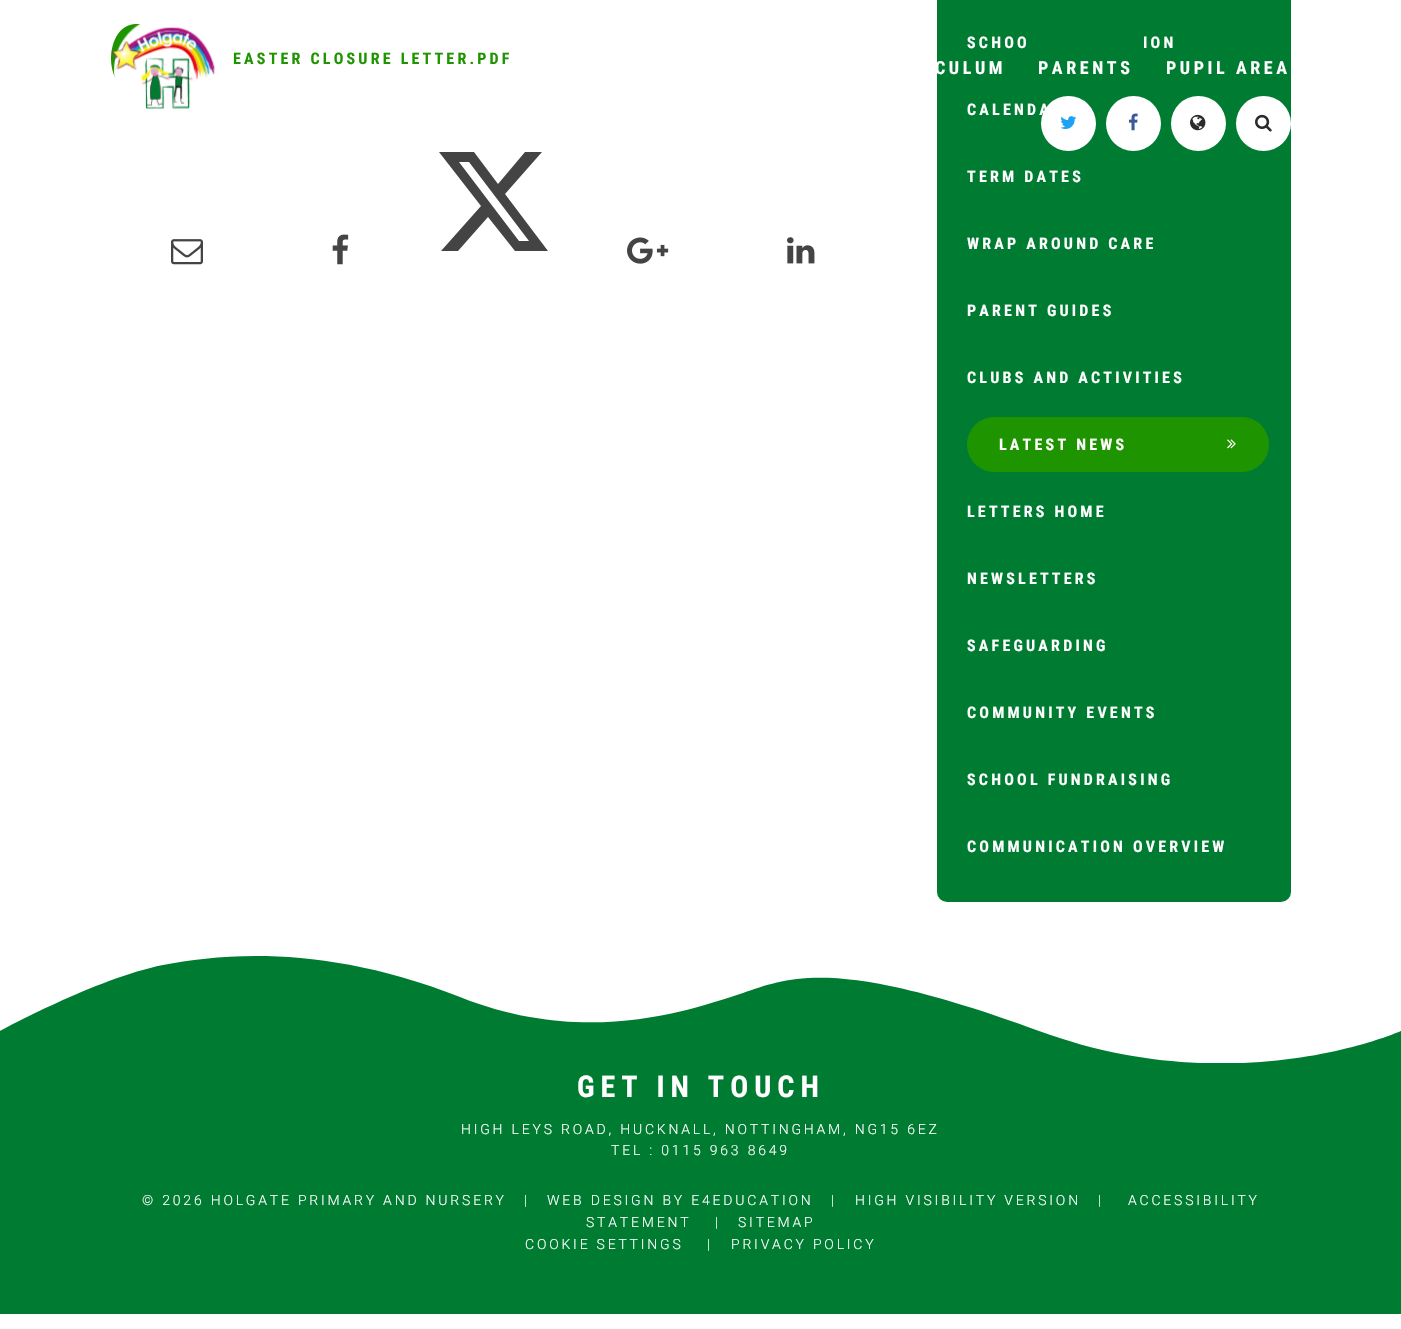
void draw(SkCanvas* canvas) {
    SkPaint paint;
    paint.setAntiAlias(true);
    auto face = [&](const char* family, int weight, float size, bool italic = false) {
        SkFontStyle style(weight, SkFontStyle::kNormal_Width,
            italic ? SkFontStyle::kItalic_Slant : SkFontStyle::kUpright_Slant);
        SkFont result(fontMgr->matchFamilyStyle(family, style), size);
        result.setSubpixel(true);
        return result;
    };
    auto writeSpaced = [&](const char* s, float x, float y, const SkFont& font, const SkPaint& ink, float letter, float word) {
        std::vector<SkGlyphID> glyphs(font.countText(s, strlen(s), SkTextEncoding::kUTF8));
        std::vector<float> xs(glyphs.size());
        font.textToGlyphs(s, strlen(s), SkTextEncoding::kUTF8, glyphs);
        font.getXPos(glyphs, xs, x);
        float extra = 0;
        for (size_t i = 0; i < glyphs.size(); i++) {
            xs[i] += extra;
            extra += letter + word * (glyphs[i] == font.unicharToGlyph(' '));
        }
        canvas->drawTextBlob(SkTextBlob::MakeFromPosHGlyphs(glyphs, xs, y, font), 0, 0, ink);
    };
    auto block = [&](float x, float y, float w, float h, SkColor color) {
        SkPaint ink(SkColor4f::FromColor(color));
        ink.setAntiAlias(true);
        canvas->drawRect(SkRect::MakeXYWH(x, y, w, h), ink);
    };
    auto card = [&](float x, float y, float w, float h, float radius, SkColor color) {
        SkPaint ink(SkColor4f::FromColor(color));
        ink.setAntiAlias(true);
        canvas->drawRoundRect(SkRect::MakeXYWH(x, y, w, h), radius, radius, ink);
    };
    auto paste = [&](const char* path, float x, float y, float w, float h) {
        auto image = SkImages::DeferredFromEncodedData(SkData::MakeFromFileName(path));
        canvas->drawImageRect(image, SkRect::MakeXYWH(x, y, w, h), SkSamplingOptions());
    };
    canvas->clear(SK_ColorWHITE);
    paste("pic1.png", 111, 24, 32, 58);
    auto kFont1 = face("Roboto Condensed", 700, 16);
    paint.setColor(SkColorSetRGB(30, 149, 0));
    writeSpaced("EASTER CLOSURE LETTER.PDF", 233, 64, kFont1, paint, 3.2f, 0);
    paste("pic2.png", 171, 239, 32, 26);
    paste("pic3.png", 332, 234, 17, 31);
    paint.setColor(SkColorSetRGB(68, 68, 68));
    canvas->drawPath(SkPathBuilder().moveTo(525, 152).lineTo(542, 152).lineTo(505, 194).lineTo(548, 251).lineTo(515, 251).lineTo(488, 217).lineTo(458, 251).lineTo(441, 251).lineTo(481, 206).lineTo(439, 152).lineTo(474, 152).lineTo(498, 184).close().moveTo(519, 241).lineTo(529, 241).lineTo(469, 162).lineTo(459, 162).close().detach(), paint);
    paste("pic4.png", 627, 237, 42, 27);
    paste("pic5.png", 787, 237, 28, 27);
    card(937, -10, 354, 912, 10, SkColorSetRGB(0, 124, 50));
    paint.setColor(SK_ColorWHITE);
    writeSpaced("SCHOO", 967, 48, kFont1, paint, 3.2f, 0);
    writeSpaced("ION", 1143, 48, kFont1, paint, 3.2f, 0);
    writeSpaced("CALENDA", 967, 115, kFont1, paint, 3.2f, 0);
    writeSpaced("TERM DATES", 967, 182, kFont1, paint, 3.2f, 0);
    writeSpaced("WRAP AROUND CARE", 967, 249, kFont1, paint, 3.2f, 0);
    writeSpaced("PARENT GUIDES", 967, 316, kFont1, paint, 3.2f, 0);
    writeSpaced("CLUBS AND ACTIVITIES", 967, 383, kFont1, paint, 3.2f, 0);
    card(967, 417, 302, 55, 27.5f, SkColorSetRGB(30, 149, 0));
    writeSpaced("LATEST NEWS", 999, 450, kFont1, paint, 3.2f, 0);
    paste("pic6.png", 1227, 439, 9, 10);
    writeSpaced("LETTERS HOME", 967, 517, kFont1, paint, 3.2f, 0);
    writeSpaced("NEWSLETTERS", 967, 584, kFont1, paint, 3.2f, 0);
    writeSpaced("SAFEGUARDING", 967, 651, kFont1, paint, 3.2f, 0);
    writeSpaced("COMMUNITY EVENTS", 967, 718, kFont1, paint, 3.2f, 0);
    writeSpaced("SCHOOL FUNDRAISING", 967, 785, kFont1, paint, 3.2f, 0);
    writeSpaced("COMMUNICATION OVERVIEW", 967, 852, kFont1, paint, 3.2f, 0);
    paste("pic7.png", 111, 24, 111, 85);
    auto kFont2 = face("Roboto Condensed", 700, 18);
    writeSpaced("CULUM", 935, 74, kFont2, paint, 3.6f, 0);
    writeSpaced("PARENTS", 1038, 74, kFont2, paint, 3.6f, 0);
    writeSpaced("PUPIL AREA", 1166, 74, kFont2, paint, 3.6f, 0);
    canvas->drawCircle(1068.5f, 123.5f, 27.5f, paint);
    paste("pic8.png", 1060, 116, 17, 13);
    canvas->drawCircle(1133.5f, 123.5f, 27.5f, paint);
    paste("pic9.png", 1128, 113, 10, 18);
    canvas->drawCircle(1198.5f, 123.5f, 27.5f, paint);
    paste("pic10.png", 1190, 114, 16, 17);
    canvas->drawCircle(1263.5f, 123.5f, 27.5f, paint);
    paste("pic11.png", 1255, 114, 17, 18);
    block(0, 955, 1401, 359, SkColorSetRGB(0, 124, 50));
    canvas->save();
    canvas->clipRect(SkRect::MakeXYWH(0, 933, 1401, 130));
    canvas->drawPath(SkPathBuilder().moveTo(0, 1031).cubicTo(0, 1031, 97, 978, 163, 965).cubicTo(229, 952, 331, 946, 460, 997).cubicTo(588, 1048, 693, 1009, 743, 993).cubicTo(792, 976, 840, 958, 1039, 1031).cubicTo(1238, 1104, 1401, 1031, 1401, 1031).lineTo(1401, 933).lineTo(0, 933).close().detach(), paint);
    canvas->restore();
    auto kFont3 = face("Roboto Condensed", 700, 30);
    writeSpaced("GET IN TOUCH", 577, 1097, kFont3, paint, 6, 0);
    auto kFont4 = face("Roboto", 300, 14);
    writeSpaced("HIGH LEYS ROAD, HUCKNALL, NOTTINGHAM, NG15 6EZ", 461, 1134, kFont4, paint, 2.8f, 0);
    writeSpaced("TEL : 0115 963 8649", 611, 1155, kFont4, paint, 2.8f, 0);
    writeSpaced("© 2026 HOLGATE PRIMARY AND NURSERY", 142, 1205, kFont4, paint, 2.8f, 0);
    writeSpaced("|", 524, 1205, kFont4, paint, 2.8f, 0);
    writeSpaced("WEB DESIGN BY E4EDUCATION", 547, 1205, kFont4, paint, 2.8f, 0);
    writeSpaced("|", 831, 1205, kFont4, paint, 2.8f, 0);
    writeSpaced("HIGH VISIBILITY VERSION", 855, 1205, kFont4, paint, 2.8f, 0);
    writeSpaced("|", 1098, 1205, kFont4, paint, 2.8f, 0);
    writeSpaced("ACCESSIBILITY", 1128, 1205, kFont4, paint, 2.8f, 0);
    writeSpaced("STATEMENT", 586, 1227, kFont4, paint, 2.8f, 0);
    writeSpaced("|", 715, 1227, kFont4, paint, 2.8f, 0);
    writeSpaced("SITEMAP", 738, 1227, kFont4, paint, 2.8f, 0);
    writeSpaced("COOKIE SETTINGS", 525, 1249, kFont4, paint, 2.8f, 0);
    writeSpaced("|", 707, 1249, kFont4, paint, 2.8f, 0);
    writeSpaced("PRIVACY POLICY", 731, 1249, kFont4, paint, 2.8f, 0);
}
